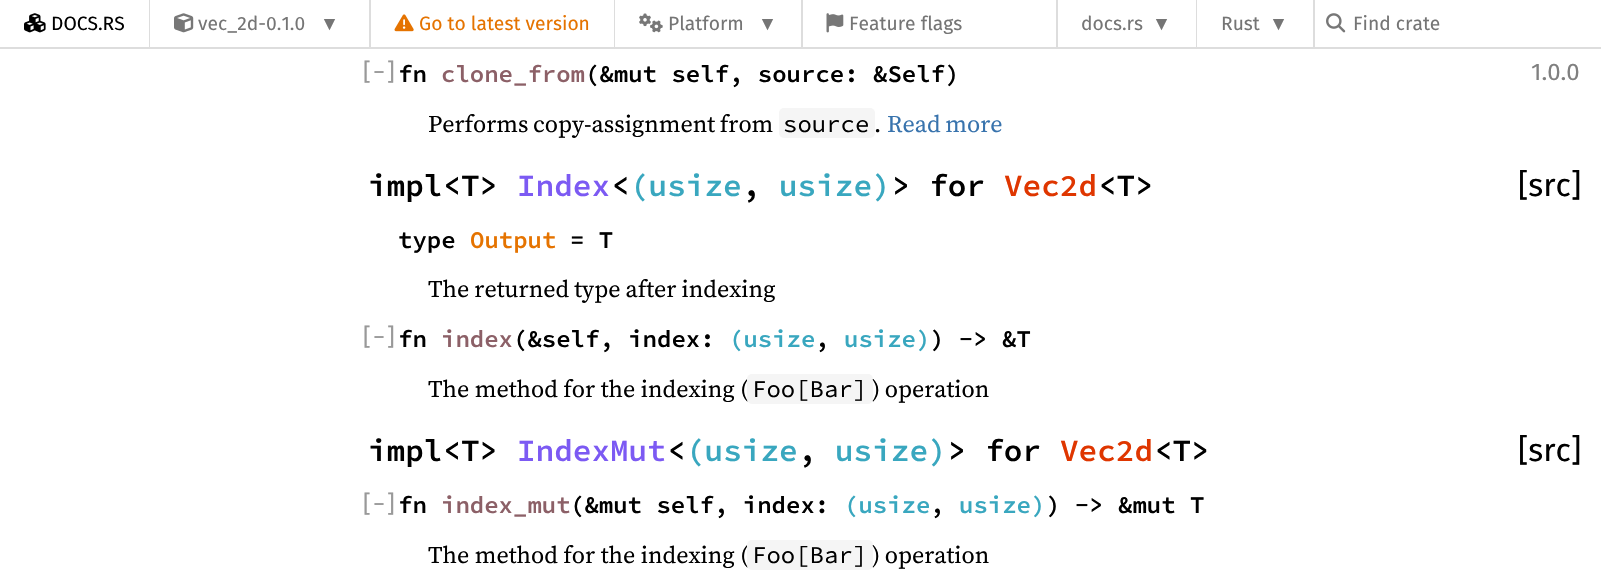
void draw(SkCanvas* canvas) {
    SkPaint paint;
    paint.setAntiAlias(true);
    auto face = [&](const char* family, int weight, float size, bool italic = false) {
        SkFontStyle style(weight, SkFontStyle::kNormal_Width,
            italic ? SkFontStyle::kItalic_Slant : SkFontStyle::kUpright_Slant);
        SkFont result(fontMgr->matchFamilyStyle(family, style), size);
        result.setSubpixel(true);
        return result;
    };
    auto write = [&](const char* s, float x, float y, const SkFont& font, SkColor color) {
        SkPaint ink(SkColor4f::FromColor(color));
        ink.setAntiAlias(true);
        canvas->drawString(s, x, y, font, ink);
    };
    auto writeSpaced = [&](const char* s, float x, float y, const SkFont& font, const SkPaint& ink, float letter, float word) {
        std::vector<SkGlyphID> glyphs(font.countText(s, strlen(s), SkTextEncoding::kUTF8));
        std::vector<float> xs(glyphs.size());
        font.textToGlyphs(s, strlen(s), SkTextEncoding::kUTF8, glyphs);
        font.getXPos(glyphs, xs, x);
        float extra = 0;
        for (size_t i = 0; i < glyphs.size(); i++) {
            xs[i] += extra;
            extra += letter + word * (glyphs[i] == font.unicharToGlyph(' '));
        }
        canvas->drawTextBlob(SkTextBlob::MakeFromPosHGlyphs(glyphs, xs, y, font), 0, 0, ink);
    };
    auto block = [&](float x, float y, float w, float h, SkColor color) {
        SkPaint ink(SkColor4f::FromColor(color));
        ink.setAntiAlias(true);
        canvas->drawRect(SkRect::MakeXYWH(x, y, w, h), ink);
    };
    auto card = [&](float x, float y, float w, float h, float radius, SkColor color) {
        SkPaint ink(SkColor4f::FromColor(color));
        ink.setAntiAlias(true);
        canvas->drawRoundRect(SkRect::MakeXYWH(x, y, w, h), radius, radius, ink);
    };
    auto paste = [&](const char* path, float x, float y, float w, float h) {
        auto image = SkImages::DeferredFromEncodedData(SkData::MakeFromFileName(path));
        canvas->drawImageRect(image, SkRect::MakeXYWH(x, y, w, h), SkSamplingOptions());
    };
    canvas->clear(SK_ColorWHITE);
    block(0, 47, 1601, 2, SkColorSetRGB(221, 221, 221));
    paste("pic1.png", 24, 13, 22, 20);
    auto kFont1 = face("Fira Sans", 400, 19.25f);
    write("DOCS.RS", 51, 30, kFont1, SK_ColorBLACK);
    block(149, 0, 1, 47, SkColorSetRGB(221, 221, 221));
    paste("pic2.png", 174, 13, 20, 20);
    write("vec_2d-0.1.0", 198, 30, kFont1, SkColorSetRGB(117, 117, 117));
    auto kFont2 = face("Liberation Sans", 400, 19.25f);
    write("▼", 320, 30, kFont2, SkColorSetRGB(117, 117, 117));
    block(369, 0, 2, 47, SkColorSetRGB(221, 221, 221));
    paste("pic3.png", 394, 14, 20, 18);
    write("Go to latest version", 419, 30, kFont1, SkColorSetRGB(229, 115, 0));
    block(614, 0, 1, 47, SkColorSetRGB(221, 221, 221));
    paste("pic4.png", 639, 13, 24, 20);
    write("Platform", 668, 30, kFont1, SkColorSetRGB(117, 117, 117));
    write("▼", 758, 30, kFont2, SkColorSetRGB(117, 117, 117));
    block(801, 0, 2, 47, SkColorSetRGB(221, 221, 221));
    paste("pic5.png", 826, 13, 18, 20);
    write("Feature flags", 849, 30, kFont1, SkColorSetRGB(117, 117, 117));
    block(1056, 0, 2, 47, SkColorSetRGB(221, 221, 221));
    write("docs.rs", 1081, 30, kFont1, SkColorSetRGB(117, 117, 117));
    write("▼", 1152, 30, kFont2, SkColorSetRGB(117, 117, 117));
    block(1196, 0, 1, 47, SkColorSetRGB(221, 221, 221));
    write("Rust", 1221, 30, kFont1, SkColorSetRGB(117, 117, 117));
    write("▼", 1269, 30, kFont2, SkColorSetRGB(117, 117, 117));
    block(1313, 0, 2, 47, SkColorSetRGB(221, 221, 221));
    paste("pic6.png", 1326, 13, 20, 20);
    write("Find crate", 1353, 30, kFont1, SkColorSetRGB(117, 117, 117));
    auto kFont3 = face("Fira Sans", 400, 24);
    write("[", 363, 80, kFont3, SkColorSetRGB(153, 153, 153));
    write("−", 373, 80, kFont3, SkColorSetRGB(153, 153, 153));
    write("]", 387, 80, kFont3, SkColorSetRGB(153, 153, 153));
    auto kFont4 = face("Source Code Pro", 600, 24);
    write("fn", 398, 82, kFont4, SK_ColorBLACK);
    write("clone_from", 441, 82, kFont4, SkColorSetRGB(140, 96, 103));
    write("(&mut self, source: &Self)", 585, 82, kFont4, SK_ColorBLACK);
    write("1.0.0", 1531, 80, kFont3, SkColorSetRGB(128, 128, 128));
    auto kFont5 = face("Source Serif Pro", 400, 24);
    paint.setColor(SK_ColorBLACK);
    writeSpaced("Performs copy-assignment from", 428, 132, kFont5, paint, 0, -1);
    card(779, 108, 96, 30, 5, SkColorSetRGB(245, 245, 245));
    auto kFont6 = face("Source Code Pro", 400, 24);
    write("source", 783, 132, kFont6, SK_ColorBLACK);
    write(".", 874, 132, kFont5, SK_ColorBLACK);
    paint.setColor(SkColorSetRGB(56, 115, 173));
    writeSpaced("Read more", 887, 132, kFont5, paint, 0, -1);
    auto kFont7 = face("Source Code Pro", 600, 31);
    write("impl<T>", 368, 196, kFont7, SK_ColorBLACK);
    write("Index", 517, 196, kFont7, SkColorSetRGB(124, 90, 243));
    write("<", 611, 196, kFont7, SK_ColorBLACK);
    write("(usize", 630, 196, kFont7, SkColorSetRGB(57, 167, 191));
    write("usize)", 779, 196, kFont7, SkColorSetRGB(57, 167, 191));
    write("> for", 892, 196, kFont7, SK_ColorBLACK);
    write("Vec2d", 1004, 196, kFont7, SkColorSetRGB(223, 54, 0));
    write("<T>", 1098, 196, kFont7, SK_ColorBLACK);
    write(",", 742, 196, kFont7, SK_ColorBLACK);
    auto kFont8 = face("Fira Sans", 400, 32);
    write("[src]", 1518, 196, kFont8, SK_ColorBLACK);
    write("type", 398, 248, kFont4, SK_ColorBLACK);
    write("Output", 470, 248, kFont4, SkColorSetRGB(229, 115, 0));
    write("= T", 570, 248, kFont4, SK_ColorBLACK);
    paint.setColor(SK_ColorBLACK);
    writeSpaced("The returned type after indexing", 428, 297, kFont5, paint, 0, -0.5f);
    write("[", 363, 345, kFont3, SkColorSetRGB(153, 153, 153));
    write("−", 373, 345, kFont3, SkColorSetRGB(153, 153, 153));
    write("]", 387, 345, kFont3, SkColorSetRGB(153, 153, 153));
    write("fn", 398, 347, kFont4, SK_ColorBLACK);
    write("index", 441, 347, kFont4, SkColorSetRGB(140, 96, 103));
    write("(&self, index:", 513, 347, kFont4, SK_ColorBLACK);
    write("(usize", 729, 347, kFont4, SkColorSetRGB(57, 167, 191));
    write(",", 815, 347, kFont4, SK_ColorBLACK);
    write("usize)", 844, 347, kFont4, SkColorSetRGB(57, 167, 191));
    write(") -> &T", 930, 347, kFont4, SK_ColorBLACK);
    write("The method for the indexing (", 428, 397, kFont5, SK_ColorBLACK);
    card(747, 374, 126, 30, 5, SkColorSetRGB(245, 245, 245));
    write("Foo[Bar]", 752, 397, kFont6, SK_ColorBLACK);
    writeSpaced(") operation", 872, 397, kFont5, paint, 0, -1);
    write("impl<T>", 368, 461, kFont7, SK_ColorBLACK);
    write("IndexMut", 517, 461, kFont7, SkColorSetRGB(124, 90, 243));
    write("<", 667, 461, kFont7, SK_ColorBLACK);
    write("(usize", 686, 461, kFont7, SkColorSetRGB(57, 167, 191));
    write("usize)", 835, 461, kFont7, SkColorSetRGB(57, 167, 191));
    write("> for", 948, 461, kFont7, SK_ColorBLACK);
    write("Vec2d", 1060, 461, kFont7, SkColorSetRGB(223, 54, 0));
    write("<T>", 1154, 461, kFont7, SK_ColorBLACK);
    write(",", 798, 461, kFont7, SK_ColorBLACK);
    write("[src]", 1518, 461, kFont8, SK_ColorBLACK);
    write("[", 363, 512, kFont3, SkColorSetRGB(153, 153, 153));
    write("−", 373, 512, kFont3, SkColorSetRGB(153, 153, 153));
    write("]", 387, 512, kFont3, SkColorSetRGB(153, 153, 153));
    write("fn", 398, 513, kFont4, SK_ColorBLACK);
    write("index_mut", 441, 513, kFont4, SkColorSetRGB(140, 96, 103));
    write("(&mut self, index:", 570, 513, kFont4, SK_ColorBLACK);
    write("(usize", 844, 513, kFont4, SkColorSetRGB(57, 167, 191));
    write(",", 930, 513, kFont4, SK_ColorBLACK);
    write("usize)", 959, 513, kFont4, SkColorSetRGB(57, 167, 191));
    write(") -> &mut T", 1046, 513, kFont4, SK_ColorBLACK);
    write("The method for the indexing (", 428, 563, kFont5, SK_ColorBLACK);
    card(747, 540, 126, 30, 5, SkColorSetRGB(245, 245, 245));
    write("Foo[Bar]", 752, 563, kFont6, SK_ColorBLACK);
    writeSpaced(") operation", 872, 563, kFont5, paint, 0, -1);
}
